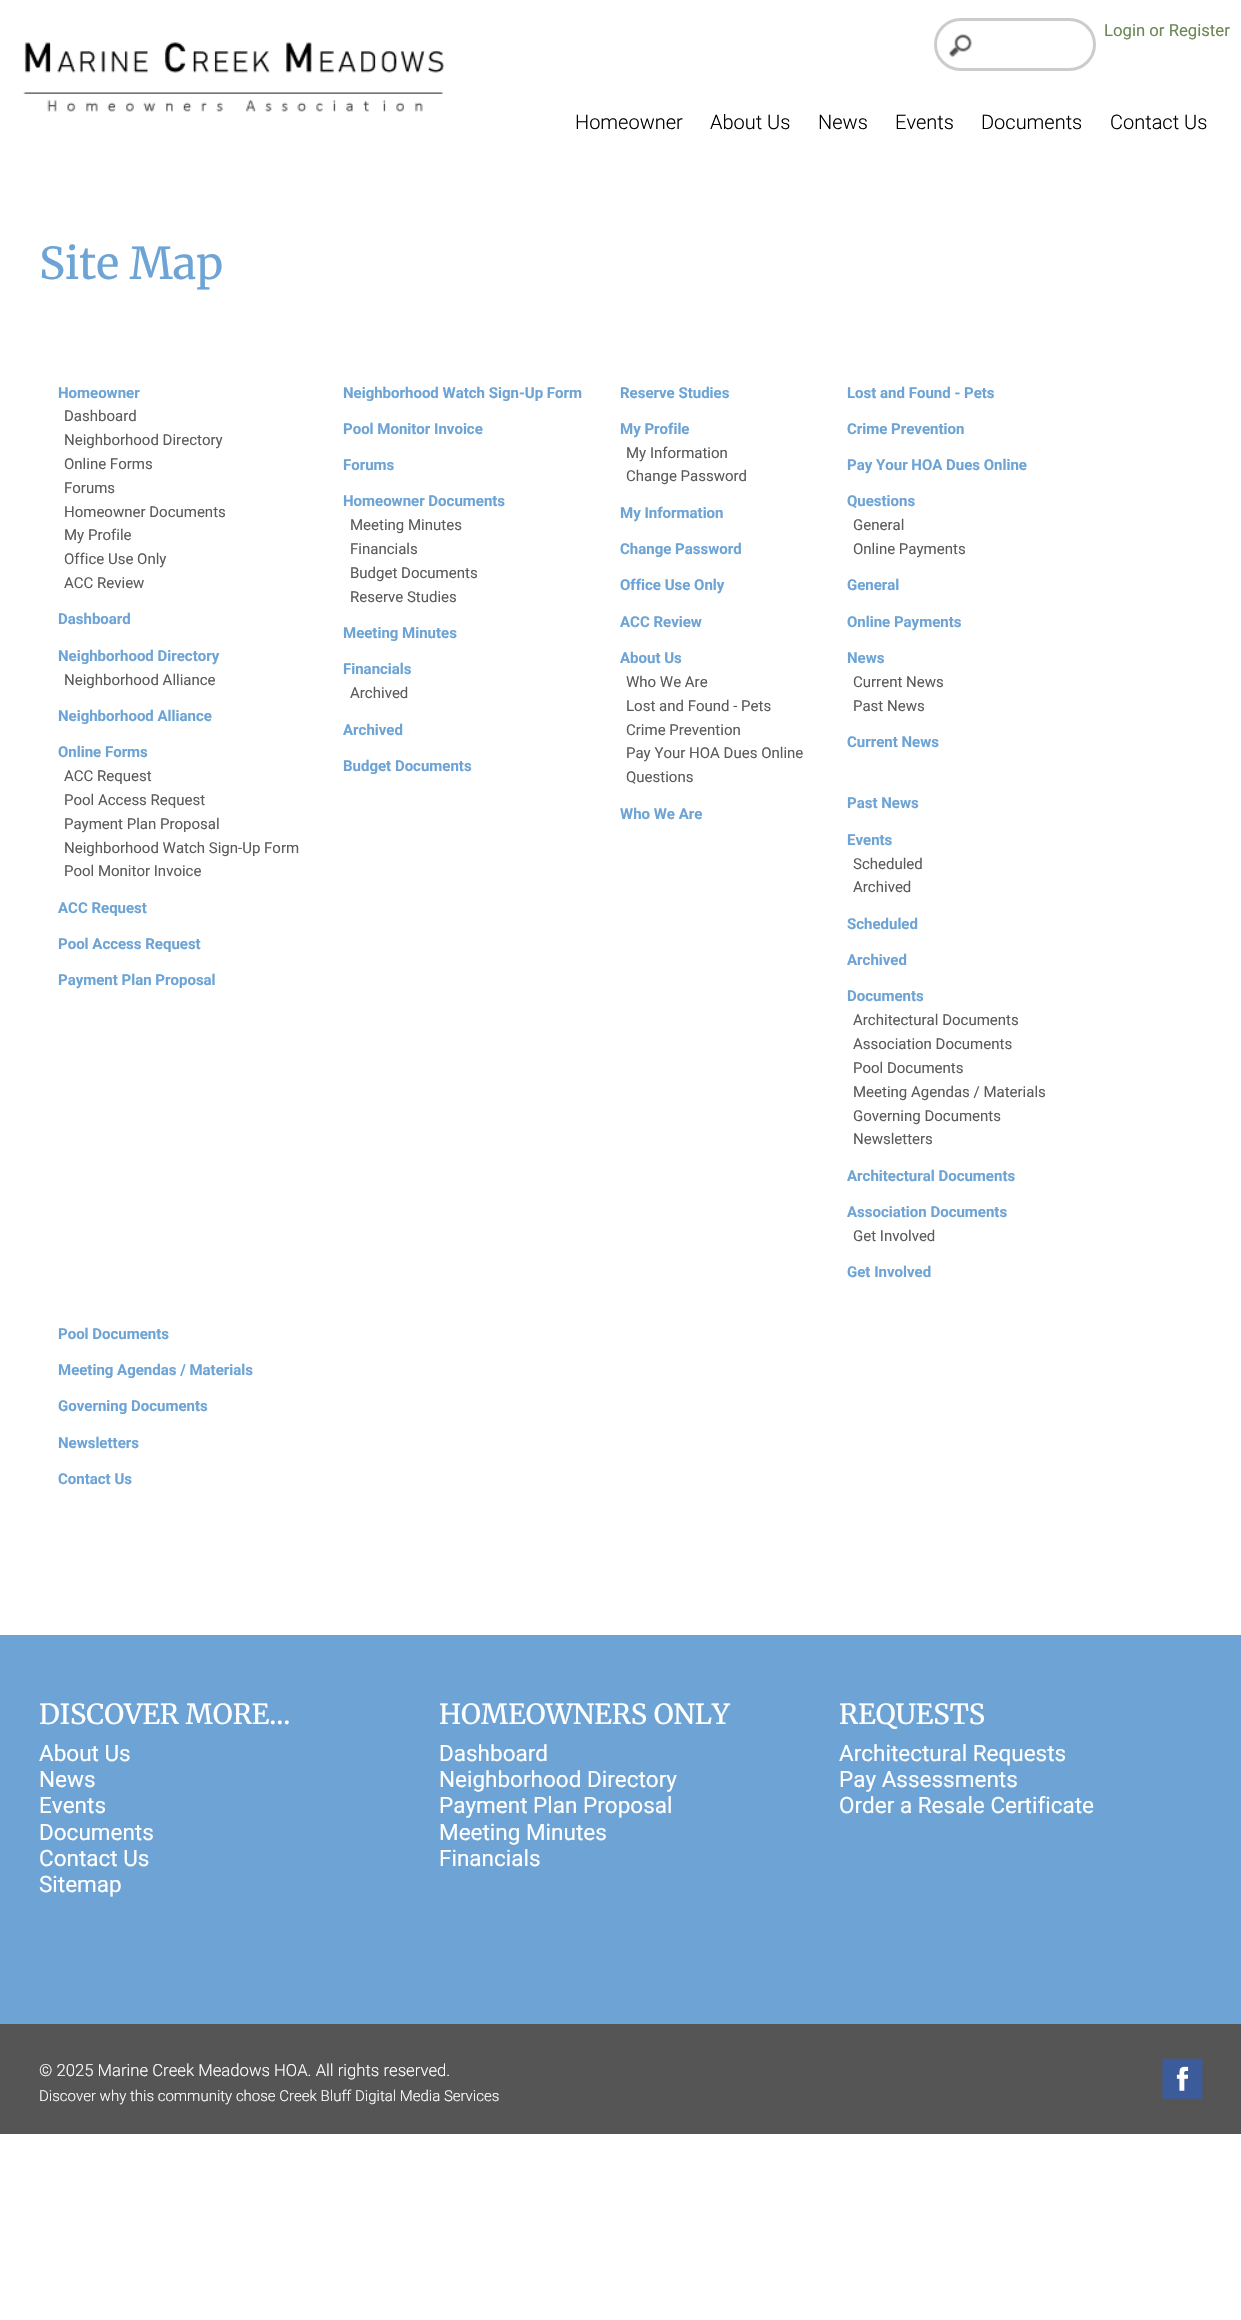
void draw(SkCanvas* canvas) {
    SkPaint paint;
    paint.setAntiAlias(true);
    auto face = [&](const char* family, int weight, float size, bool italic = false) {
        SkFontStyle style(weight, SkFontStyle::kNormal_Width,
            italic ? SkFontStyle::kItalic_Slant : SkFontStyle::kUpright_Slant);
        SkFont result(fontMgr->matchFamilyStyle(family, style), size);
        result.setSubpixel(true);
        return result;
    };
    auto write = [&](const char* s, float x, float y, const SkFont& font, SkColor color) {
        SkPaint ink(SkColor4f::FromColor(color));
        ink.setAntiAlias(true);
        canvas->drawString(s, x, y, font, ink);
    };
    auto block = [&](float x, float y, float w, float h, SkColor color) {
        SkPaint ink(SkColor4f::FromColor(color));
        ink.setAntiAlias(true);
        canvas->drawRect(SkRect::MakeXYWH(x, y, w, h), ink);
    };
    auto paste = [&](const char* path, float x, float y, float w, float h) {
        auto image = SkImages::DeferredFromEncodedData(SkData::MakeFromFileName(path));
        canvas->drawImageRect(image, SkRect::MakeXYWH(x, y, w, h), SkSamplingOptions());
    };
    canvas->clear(SK_ColorWHITE);
    paste("pic1.png", 948, 34, 24, 23);
    paint.setStyle(SkPaint::kStroke_Style);
    paint.setStrokeWidth(3);
    paint.setColor(SkColorSetRGB(204, 204, 204));
    canvas->drawRoundRect(SkRect::MakeXYWH(935.5f, 19.5f, 159, 50), 25, 25, paint);
    auto kFont1 = face("Roboto", 400, 16.7f);
    write("Login or Register", 1104, 36, kFont1, SkColorSetRGB(107, 136, 84));
    paste("pic2.png", 23, 42, 421, 70);
    auto kFont2 = face("Roboto", 300, 20);
    write("Homeowner", 575, 129, kFont2, SK_ColorBLACK);
    write("About Us", 710, 129, kFont2, SK_ColorBLACK);
    write("News", 818, 129, kFont2, SK_ColorBLACK);
    write("Events", 895, 129, kFont2, SK_ColorBLACK);
    write("Documents", 981, 129, kFont2, SK_ColorBLACK);
    write("Contact Us", 1110, 129, kFont2, SK_ColorBLACK);
    auto kFont3 = face("Merriweather", 400, 43.75f);
    write("Site Map", 39, 279, kFont3, SkColorSetRGB(109, 164, 213));
    auto kFont4 = face("Roboto", 700, 15);
    write("Homeowner", 58, 398, kFont4, SkColorSetRGB(109, 164, 213));
    auto kFont5 = face("Roboto", 400, 15);
    write("Dashboard", 64, 421, kFont5, SkColorSetRGB(91, 91, 91));
    write("Neighborhood Directory", 64, 445, kFont5, SkColorSetRGB(91, 91, 91));
    write("Online Forms", 64, 469, kFont5, SkColorSetRGB(91, 91, 91));
    write("Forums", 64, 493, kFont5, SkColorSetRGB(91, 91, 91));
    write("Homeowner Documents", 64, 517, kFont5, SkColorSetRGB(91, 91, 91));
    write("My Profile", 64, 540, kFont5, SkColorSetRGB(91, 91, 91));
    write("Office Use Only", 64, 564, kFont5, SkColorSetRGB(91, 91, 91));
    write("ACC Review", 64, 588, kFont5, SkColorSetRGB(91, 91, 91));
    write("Dashboard", 58, 624, kFont4, SkColorSetRGB(109, 164, 213));
    write("Neighborhood Directory", 58, 661, kFont4, SkColorSetRGB(109, 164, 213));
    write("Neighborhood Alliance", 64, 685, kFont5, SkColorSetRGB(91, 91, 91));
    write("Neighborhood Alliance", 58, 721, kFont4, SkColorSetRGB(109, 164, 213));
    write("Online Forms", 58, 757, kFont4, SkColorSetRGB(109, 164, 213));
    write("ACC Request", 64, 781, kFont5, SkColorSetRGB(91, 91, 91));
    write("Pool Access Request", 64, 805, kFont5, SkColorSetRGB(91, 91, 91));
    write("Payment Plan Proposal", 64, 829, kFont5, SkColorSetRGB(91, 91, 91));
    write("Neighborhood Watch Sign-Up Form", 64, 853, kFont5, SkColorSetRGB(91, 91, 91));
    write("Pool Monitor Invoice", 64, 876, kFont5, SkColorSetRGB(91, 91, 91));
    write("ACC Request", 58, 913, kFont4, SkColorSetRGB(109, 164, 213));
    write("Pool Access Request", 58, 949, kFont4, SkColorSetRGB(109, 164, 213));
    write("Payment Plan Proposal", 58, 985, kFont4, SkColorSetRGB(109, 164, 213));
    write("Neighborhood Watch Sign-Up Form", 343, 398, kFont4, SkColorSetRGB(109, 164, 213));
    write("Pool Monitor Invoice", 343, 434, kFont4, SkColorSetRGB(109, 164, 213));
    write("Forums", 343, 470, kFont4, SkColorSetRGB(109, 164, 213));
    write("Homeowner Documents", 343, 506, kFont4, SkColorSetRGB(109, 164, 213));
    write("Meeting Minutes", 350, 530, kFont5, SkColorSetRGB(91, 91, 91));
    write("Financials", 350, 554, kFont5, SkColorSetRGB(91, 91, 91));
    write("Budget Documents", 350, 578, kFont5, SkColorSetRGB(91, 91, 91));
    write("Reserve Studies", 350, 602, kFont5, SkColorSetRGB(91, 91, 91));
    write("Meeting Minutes", 343, 638, kFont4, SkColorSetRGB(109, 164, 213));
    write("Financials", 343, 674, kFont4, SkColorSetRGB(109, 164, 213));
    write("Archived", 350, 698, kFont5, SkColorSetRGB(91, 91, 91));
    write("Archived", 343, 735, kFont4, SkColorSetRGB(109, 164, 213));
    write("Budget Documents", 343, 771, kFont4, SkColorSetRGB(109, 164, 213));
    write("Reserve Studies", 620, 398, kFont4, SkColorSetRGB(109, 164, 213));
    write("My Profile", 620, 434, kFont4, SkColorSetRGB(109, 164, 213));
    write("My Information", 626, 458, kFont5, SkColorSetRGB(91, 91, 91));
    write("Change Password", 626, 481, kFont5, SkColorSetRGB(91, 91, 91));
    write("My Information", 620, 518, kFont4, SkColorSetRGB(109, 164, 213));
    write("Change Password", 620, 554, kFont4, SkColorSetRGB(109, 164, 213));
    write("Office Use Only", 620, 590, kFont4, SkColorSetRGB(109, 164, 213));
    write("ACC Review", 620, 627, kFont4, SkColorSetRGB(109, 164, 213));
    write("About Us", 620, 663, kFont4, SkColorSetRGB(109, 164, 213));
    write("Who We Are", 626, 687, kFont5, SkColorSetRGB(91, 91, 91));
    write("Lost and Found - Pets", 626, 711, kFont5, SkColorSetRGB(91, 91, 91));
    write("Crime Prevention", 626, 735, kFont5, SkColorSetRGB(91, 91, 91));
    write("Pay Your HOA Dues Online", 626, 758, kFont5, SkColorSetRGB(91, 91, 91));
    write("Questions", 626, 782, kFont5, SkColorSetRGB(91, 91, 91));
    write("Who We Are", 620, 819, kFont4, SkColorSetRGB(109, 164, 213));
    write("Lost and Found - Pets", 847, 398, kFont4, SkColorSetRGB(109, 164, 213));
    write("Crime Prevention", 847, 434, kFont4, SkColorSetRGB(109, 164, 213));
    write("Pay Your HOA Dues Online", 847, 470, kFont4, SkColorSetRGB(109, 164, 213));
    write("Questions", 847, 506, kFont4, SkColorSetRGB(109, 164, 213));
    write("General", 853, 530, kFont5, SkColorSetRGB(91, 91, 91));
    write("Online Payments", 853, 554, kFont5, SkColorSetRGB(91, 91, 91));
    write("General", 847, 590, kFont4, SkColorSetRGB(109, 164, 213));
    write("Online Payments", 847, 627, kFont4, SkColorSetRGB(109, 164, 213));
    write("News", 847, 663, kFont4, SkColorSetRGB(109, 164, 213));
    write("Current News", 853, 687, kFont5, SkColorSetRGB(91, 91, 91));
    write("Past News", 853, 711, kFont5, SkColorSetRGB(91, 91, 91));
    write("Current News", 847, 747, kFont4, SkColorSetRGB(109, 164, 213));
    write("Past News", 847, 808, kFont4, SkColorSetRGB(109, 164, 213));
    write("Events", 847, 845, kFont4, SkColorSetRGB(109, 164, 213));
    write("Scheduled", 853, 869, kFont5, SkColorSetRGB(91, 91, 91));
    write("Archived", 853, 892, kFont5, SkColorSetRGB(91, 91, 91));
    write("Scheduled", 847, 929, kFont4, SkColorSetRGB(109, 164, 213));
    write("Archived", 847, 965, kFont4, SkColorSetRGB(109, 164, 213));
    write("Documents", 847, 1001, kFont4, SkColorSetRGB(109, 164, 213));
    write("Architectural Documents", 853, 1025, kFont5, SkColorSetRGB(91, 91, 91));
    write("Association Documents", 853, 1049, kFont5, SkColorSetRGB(91, 91, 91));
    write("Pool Documents", 853, 1073, kFont5, SkColorSetRGB(91, 91, 91));
    write("Meeting Agendas / Materials", 853, 1097, kFont5, SkColorSetRGB(91, 91, 91));
    write("Governing Documents", 853, 1121, kFont5, SkColorSetRGB(91, 91, 91));
    write("Newsletters", 853, 1144, kFont5, SkColorSetRGB(91, 91, 91));
    write("Architectural Documents", 847, 1181, kFont4, SkColorSetRGB(109, 164, 213));
    write("Association Documents", 847, 1217, kFont4, SkColorSetRGB(109, 164, 213));
    write("Get Involved", 853, 1241, kFont5, SkColorSetRGB(91, 91, 91));
    write("Get Involved", 847, 1277, kFont4, SkColorSetRGB(109, 164, 213));
    write("Pool Documents", 58, 1339, kFont4, SkColorSetRGB(109, 164, 213));
    write("Meeting Agendas / Materials", 58, 1375, kFont4, SkColorSetRGB(109, 164, 213));
    write("Governing Documents", 58, 1411, kFont4, SkColorSetRGB(109, 164, 213));
    write("Newsletters", 58, 1448, kFont4, SkColorSetRGB(109, 164, 213));
    write("Contact Us", 58, 1484, kFont4, SkColorSetRGB(109, 164, 213));
    block(0, 1635, 1241, 389, SkColorSetRGB(109, 164, 213));
    auto kFont6 = face("Merriweather", 400, 27.5f);
    write("DISCOVER MORE...", 39, 1724, kFont6, SK_ColorWHITE);
    auto kFont7 = face("Roboto", 400, 22.5f);
    write("About Us", 39, 1761, kFont7, SK_ColorWHITE);
    write("News", 39, 1787, kFont7, SK_ColorWHITE);
    write("Events", 39, 1813, kFont7, SK_ColorWHITE);
    write("Documents", 39, 1840, kFont7, SK_ColorWHITE);
    write("Contact Us", 39, 1866, kFont7, SK_ColorWHITE);
    write("Sitemap", 39, 1892, kFont7, SK_ColorWHITE);
    write("HOMEOWNERS ONLY", 439, 1724, kFont6, SK_ColorWHITE);
    write("Dashboard", 439, 1761, kFont7, SK_ColorWHITE);
    write("Neighborhood Directory", 439, 1787, kFont7, SK_ColorWHITE);
    write("Payment Plan Proposal", 439, 1813, kFont7, SK_ColorWHITE);
    write("Meeting Minutes", 439, 1840, kFont7, SK_ColorWHITE);
    write("Financials", 439, 1866, kFont7, SK_ColorWHITE);
    write("REQUESTS", 839, 1724, kFont6, SK_ColorWHITE);
    write("Architectural Requests", 839, 1761, kFont7, SK_ColorWHITE);
    write("Pay Assessments", 839, 1787, kFont7, SK_ColorWHITE);
    write("Order a Resale Certificate", 839, 1813, kFont7, SK_ColorWHITE);
    block(0, 2024, 1241, 110, SkColorSetRGB(85, 85, 85));
    auto kFont8 = face("Roboto", 300, 16.7f);
    write("© 2025 Marine Creek Meadows HOA. All rights reserved.", 39, 2076, kFont8, SK_ColorWHITE);
    auto kFont9 = face("Roboto", 300, 15);
    write("Discover why this community chose Creek Bluff Digital Media Services", 39, 2101, kFont9, SK_ColorWHITE);
    paste("pic3.png", 1162, 2058, 41, 41);
}
